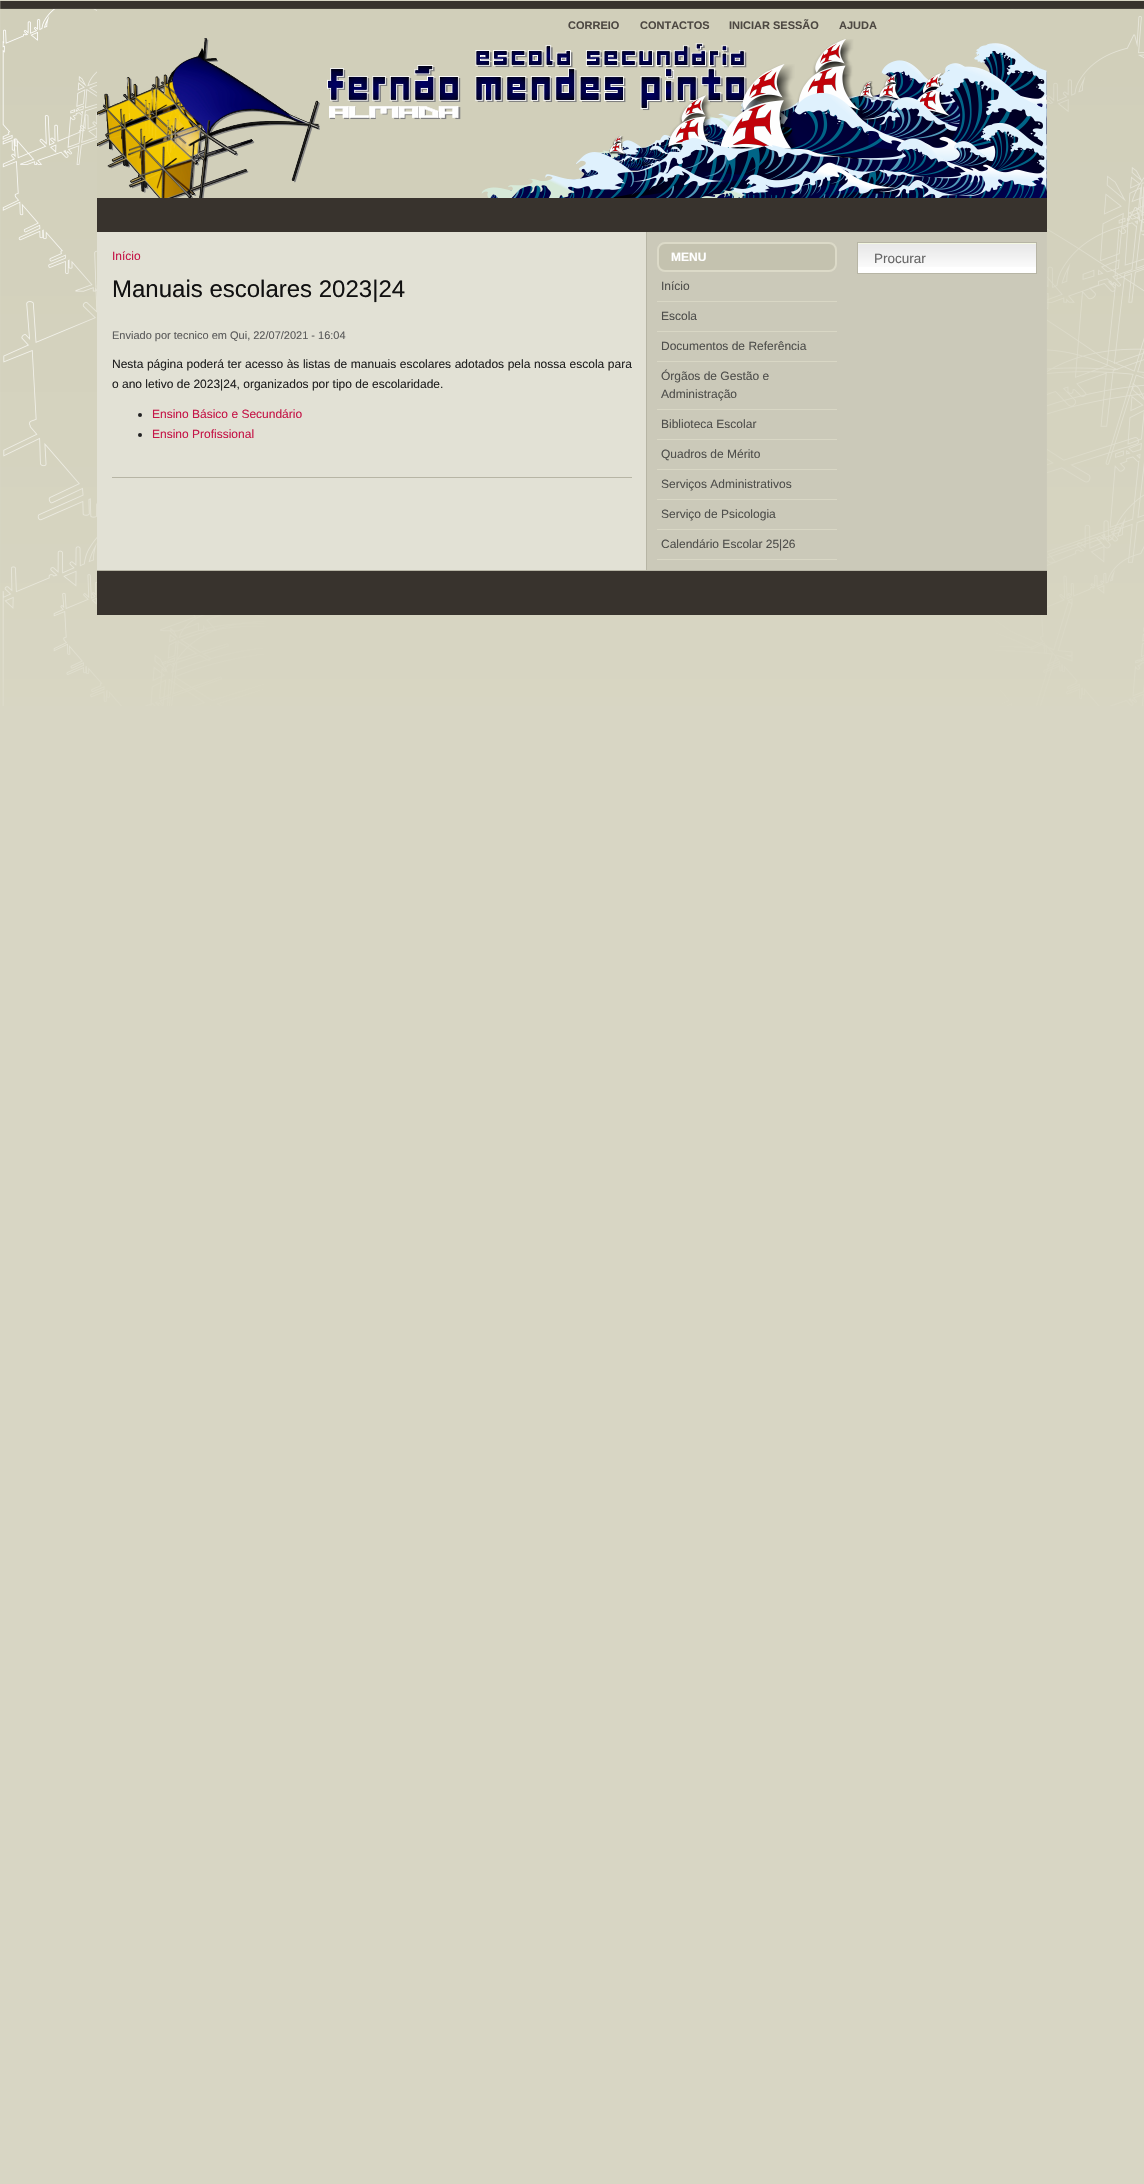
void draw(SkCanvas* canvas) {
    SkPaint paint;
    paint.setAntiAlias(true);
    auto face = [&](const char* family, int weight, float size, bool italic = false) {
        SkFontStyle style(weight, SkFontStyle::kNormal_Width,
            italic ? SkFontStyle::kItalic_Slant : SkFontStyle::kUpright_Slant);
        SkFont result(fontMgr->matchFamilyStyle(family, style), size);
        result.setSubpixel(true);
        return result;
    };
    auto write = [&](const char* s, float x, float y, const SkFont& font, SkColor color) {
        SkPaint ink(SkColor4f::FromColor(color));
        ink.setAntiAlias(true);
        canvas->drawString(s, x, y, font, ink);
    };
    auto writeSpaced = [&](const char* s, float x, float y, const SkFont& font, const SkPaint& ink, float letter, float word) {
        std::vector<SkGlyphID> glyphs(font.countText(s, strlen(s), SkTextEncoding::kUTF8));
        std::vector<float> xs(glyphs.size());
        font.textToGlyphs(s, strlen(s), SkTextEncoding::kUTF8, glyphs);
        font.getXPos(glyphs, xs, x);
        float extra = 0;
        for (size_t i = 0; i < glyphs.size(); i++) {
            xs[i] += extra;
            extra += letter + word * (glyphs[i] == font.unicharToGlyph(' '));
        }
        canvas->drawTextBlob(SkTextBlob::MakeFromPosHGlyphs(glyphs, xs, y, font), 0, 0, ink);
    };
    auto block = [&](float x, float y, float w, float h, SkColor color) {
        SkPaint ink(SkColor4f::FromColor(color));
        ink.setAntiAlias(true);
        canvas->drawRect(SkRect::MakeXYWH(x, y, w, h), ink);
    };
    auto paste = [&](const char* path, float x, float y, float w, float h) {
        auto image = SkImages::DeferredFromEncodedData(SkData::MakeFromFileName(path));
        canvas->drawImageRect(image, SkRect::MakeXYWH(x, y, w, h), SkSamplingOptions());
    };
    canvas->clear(SkColorSetRGB(216, 214, 196));
    paste("pic1.png", 0, 1, 1144, 705);
    block(97, 10, 950, 188, SkColorSetRGB(209, 207, 186));
    auto kFont1 = face("Liberation Sans", 700, 11);
    write("CORREIO", 568, 29, kFont1, SkColorSetRGB(77, 72, 66));
    write("CONTACTOS", 640, 29, kFont1, SkColorSetRGB(77, 72, 66));
    write("INICIAR SESSÃO", 729, 29, kFont1, SkColorSetRGB(77, 72, 66));
    write("AJUDA", 839, 29, kFont1, SkColorSetRGB(77, 72, 66));
    paste("pic2.png", 97, 38, 950, 160);
    block(97, 198, 950, 34, SkColorSetRGB(56, 51, 45));
    paste("pic3.png", 97, 232, 950, 338);
    auto kFont2 = face("Liberation Sans", 400, 12);
    write("Início", 112, 260, kFont2, SkColorSetRGB(197, 22, 72));
    auto kFont3 = face("Liberation Sans", 400, 24);
    write("Manuais escolares 2023|24", 112, 297, kFont3, SkColorSetRGB(17, 17, 17));
    block(112, 477, 520, 1, SkColorSetRGB(183, 181, 165));
    auto kFont4 = face("Liberation Sans", 400, 11);
    write("Enviado por tecnico em Qui, 22/07/2021 - 16:04", 112, 339, kFont4, SkColorSetRGB(91, 91, 91));
    paint.setColor(SkColorSetRGB(34, 34, 34));
    writeSpaced("Nesta página poderá ter acesso às listas de manuais escolares adotados pela nossa escola para", 112, 368, kFont2, paint, 0, 0.25f);
    write("o ano letivo de 2023|24, organizados por tipo de escolaridade.", 112, 388, kFont2, SkColorSetRGB(34, 34, 34));
    canvas->drawCircle(140, 415, 2, paint);
    write("Ensino Básico e Secundário", 152, 418, kFont2, SkColorSetRGB(197, 22, 72));
    canvas->drawCircle(140, 435, 2, paint);
    write("Ensino Profissional", 152, 438, kFont2, SkColorSetRGB(197, 22, 72));
    paint.setColor(SkColorSetRGB(196, 194, 175));
    canvas->drawRoundRect(SkRect::MakeXYWH(658, 243, 178, 28), 7, 7, paint);
    paint.setStyle(SkPaint::kStroke_Style);
    paint.setStrokeWidth(2);
    paint.setColor(SkColorSetRGB(220, 218, 200));
    canvas->drawRoundRect(SkRect::MakeXYWH(658, 243, 178, 28), 7, 7, paint);
    auto kFont5 = face("Liberation Sans", 700, 12);
    write("MENU", 671, 261, kFont5, SK_ColorWHITE);
    block(657, 301, 180, 1, SkColorSetRGB(217, 215, 197));
    write("Início", 661, 290, kFont2, SkColorSetRGB(79, 79, 76));
    block(657, 331, 180, 1, SkColorSetRGB(217, 215, 197));
    write("Escola", 661, 320, kFont2, SkColorSetRGB(79, 79, 76));
    block(657, 361, 180, 1, SkColorSetRGB(217, 215, 197));
    write("Documentos de Referência", 661, 350, kFont2, SkColorSetRGB(79, 79, 76));
    block(657, 409, 180, 1, SkColorSetRGB(217, 215, 197));
    write("Órgãos de Gestão e", 661, 380, kFont2, SkColorSetRGB(79, 79, 76));
    write("Administração", 661, 398, kFont2, SkColorSetRGB(79, 79, 76));
    block(657, 439, 180, 1, SkColorSetRGB(217, 215, 197));
    write("Biblioteca Escolar", 661, 428, kFont2, SkColorSetRGB(79, 79, 76));
    block(657, 469, 180, 1, SkColorSetRGB(217, 215, 197));
    write("Quadros de Mérito", 661, 458, kFont2, SkColorSetRGB(79, 79, 76));
    block(657, 499, 180, 1, SkColorSetRGB(217, 215, 197));
    write("Serviços Administrativos", 661, 488, kFont2, SkColorSetRGB(79, 79, 76));
    block(657, 529, 180, 1, SkColorSetRGB(217, 215, 197));
    write("Serviço de Psicologia", 661, 518, kFont2, SkColorSetRGB(79, 79, 76));
    block(657, 559, 180, 1, SkColorSetRGB(217, 215, 197));
    write("Calendário Escolar 25|26", 661, 548, kFont2, SkColorSetRGB(79, 79, 76));
    block(858, 267, 178, 6, SK_ColorWHITE);
    paste("pic4.png", 858, 243, 178, 24);
    paint.setStrokeWidth(1);
    paint.setColor(SkColorSetRGB(183, 181, 165));
    canvas->drawRect(SkRect::MakeXYWH(857.5f, 242.5f, 179, 31), paint);
    auto kFont6 = face("Liberation Sans", 400, 13.5f);
    write("Procurar", 874, 263, kFont6, SkColorSetRGB(102, 102, 102));
    block(97, 571, 950, 44, SkColorSetRGB(56, 51, 45));
    block(97, 570, 950, 1, SkColorSetRGB(183, 181, 165));
}
